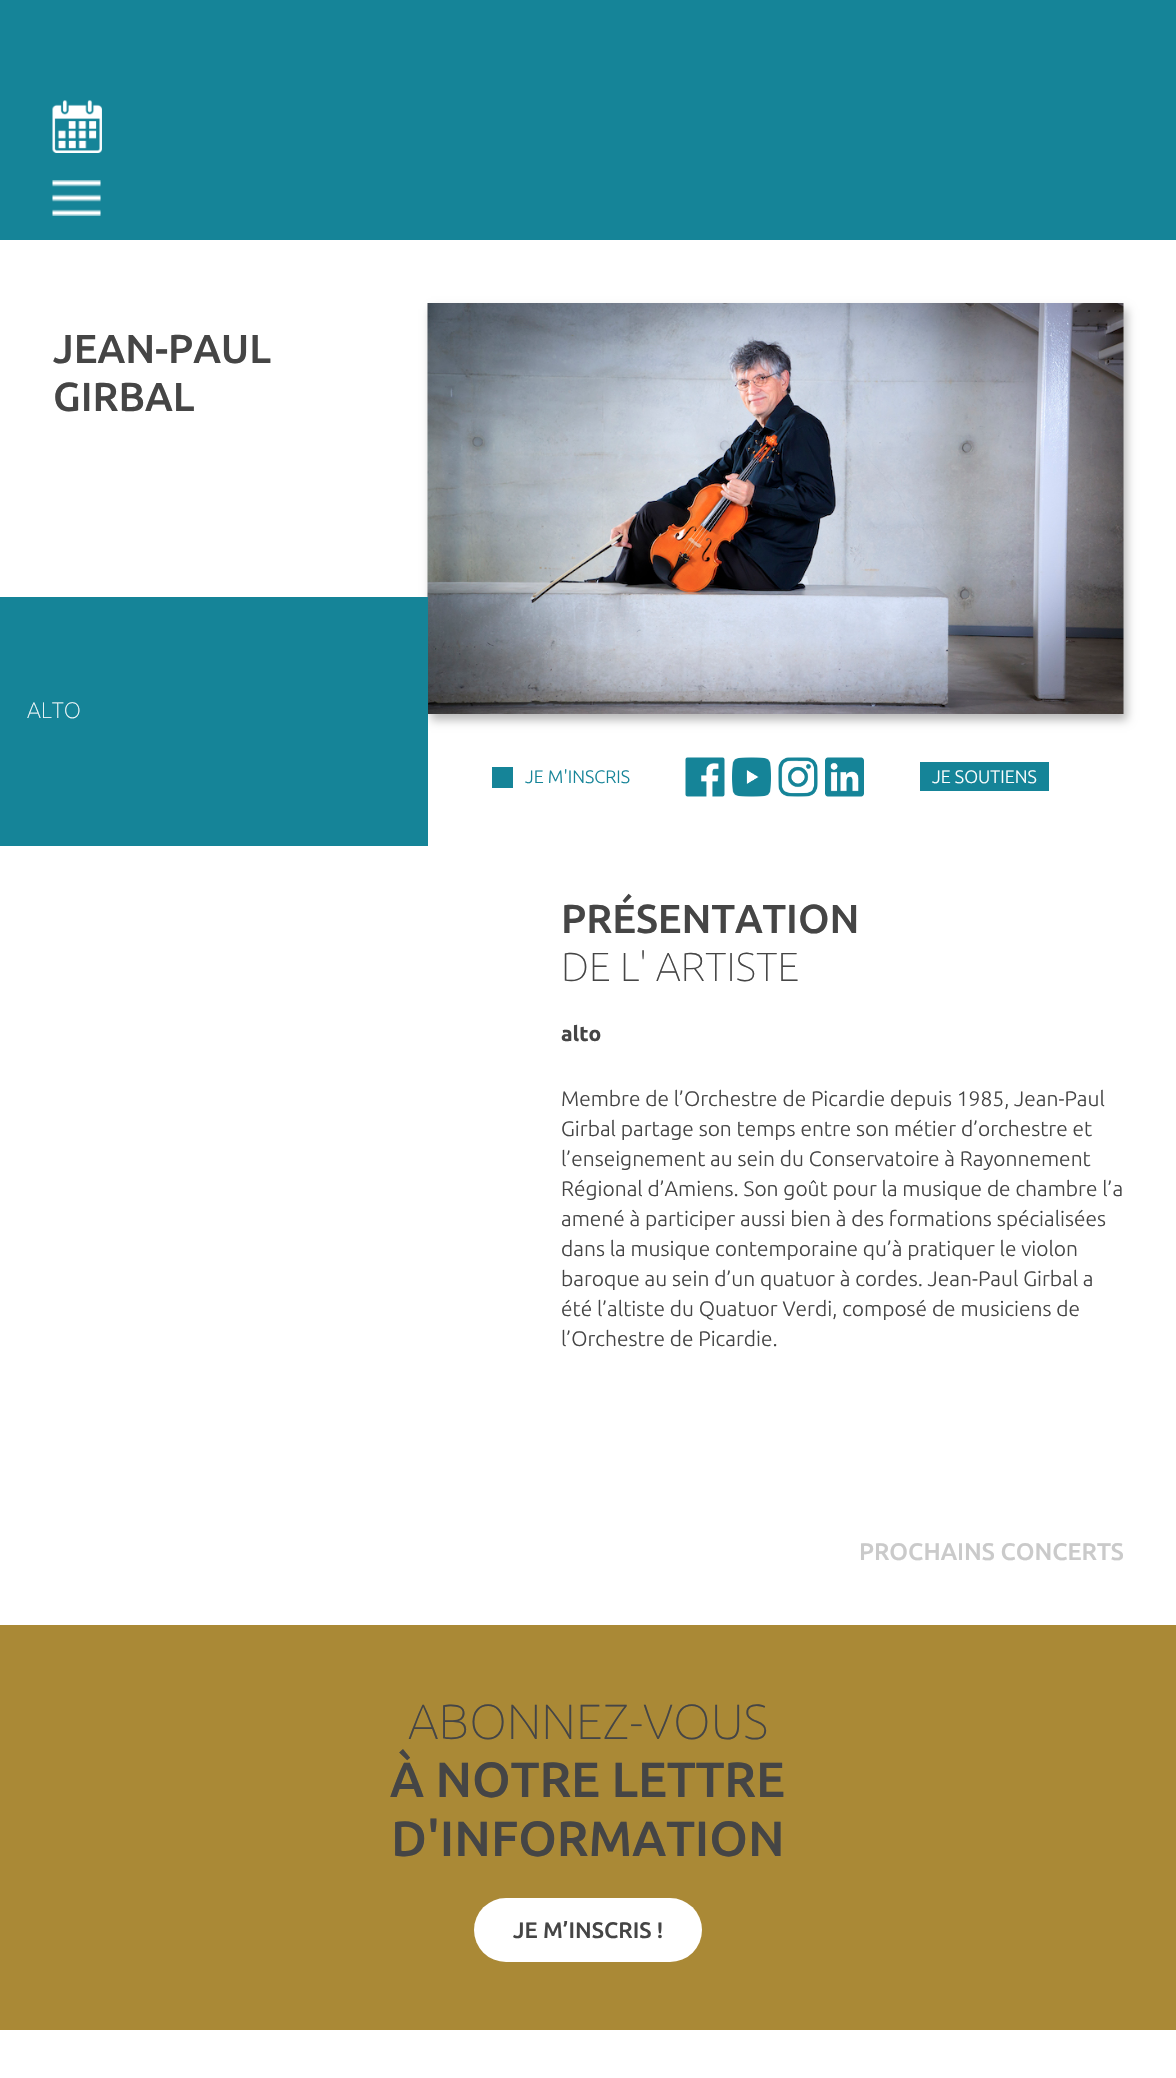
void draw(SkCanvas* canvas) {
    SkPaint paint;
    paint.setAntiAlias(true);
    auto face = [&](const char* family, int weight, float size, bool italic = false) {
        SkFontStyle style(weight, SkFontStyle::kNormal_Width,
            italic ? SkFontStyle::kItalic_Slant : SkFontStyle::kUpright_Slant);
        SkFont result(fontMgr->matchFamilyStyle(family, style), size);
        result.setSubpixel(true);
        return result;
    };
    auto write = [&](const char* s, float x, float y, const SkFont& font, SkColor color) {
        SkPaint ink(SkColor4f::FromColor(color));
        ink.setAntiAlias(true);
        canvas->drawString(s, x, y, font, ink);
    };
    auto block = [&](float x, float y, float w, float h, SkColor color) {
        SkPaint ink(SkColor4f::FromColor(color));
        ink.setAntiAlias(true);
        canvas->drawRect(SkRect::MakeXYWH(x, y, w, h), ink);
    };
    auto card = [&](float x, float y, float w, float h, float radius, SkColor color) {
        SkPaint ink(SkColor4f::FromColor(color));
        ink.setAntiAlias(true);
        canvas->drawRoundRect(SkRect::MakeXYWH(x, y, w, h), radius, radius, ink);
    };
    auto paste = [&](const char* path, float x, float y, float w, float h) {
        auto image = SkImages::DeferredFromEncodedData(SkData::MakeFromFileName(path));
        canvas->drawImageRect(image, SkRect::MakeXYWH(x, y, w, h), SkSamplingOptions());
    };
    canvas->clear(SK_ColorWHITE);
    block(0, 0, 1176, 240, SkColorSetRGB(21, 132, 152));
    paste("pic1.png", 52, 100, 50, 53);
    paste("pic2.png", 52, 180, 49, 36);
    auto kFont1 = face("Ubuntu", 500, 40.5f);
    write("JEAN-PAUL", 53, 363, kFont1, SkColorSetRGB(69, 69, 69));
    write("GIRBAL", 53, 411, kFont1, SkColorSetRGB(69, 69, 69));
    paint.setColor(SkColorSetARGB(71, 0, 0, 0));
    paint.setMaskFilter(SkMaskFilter::MakeBlur(kNormal_SkBlurStyle, 4.5f));
    canvas->drawRect(SkRect::MakeXYWH(431, 309, 696, 411), paint);
    paint.setMaskFilter(nullptr);
    paste("pic3.png", 427, 303, 697, 411);
    block(0, 597, 428, 249, SkColorSetRGB(21, 132, 152));
    auto kFont2 = face("Ubuntu", 100, 22.5f);
    write("ALTO", 27, 718, kFont2, SK_ColorWHITE);
    block(492, 767, 21, 21, SkColorSetRGB(21, 132, 152));
    auto kFont3 = face("Ubuntu", 300, 18);
    write("JE M'INSCRIS", 525, 783, kFont3, SkColorSetRGB(21, 132, 152));
    paste("pic4.png", 685, 757, 40, 40);
    paste("pic5.png", 732, 757, 39, 40);
    paste("pic6.png", 778, 757, 40, 40);
    paste("pic7.png", 825, 757, 39, 40);
    block(920, 762, 129, 29, SkColorSetRGB(21, 132, 152));
    write("JE SOUTIENS", 932, 783, kFont3, SK_ColorWHITE);
    write("PRÉSENTATION", 561, 933, kFont1, SkColorSetRGB(69, 69, 69));
    auto kFont4 = face("Ubuntu", 100, 40.5f);
    write("DE L' ARTISTE", 561, 981, kFont4, SkColorSetRGB(69, 69, 69));
    auto kFont5 = face("Ubuntu", 700, 21);
    write("alto", 561, 1041, kFont5, SkColorSetRGB(69, 69, 69));
    auto kFont6 = face("Ubuntu", 300, 21);
    write("Membre de l’Orchestre de Picardie depuis 1985, Jean-Paul", 561, 1106, kFont6, SkColorSetRGB(69, 69, 69));
    write("Girbal partage son temps entre son métier d’orchestre et", 561, 1136, kFont6, SkColorSetRGB(69, 69, 69));
    write("l’enseignement au sein du Conservatoire à Rayonnement", 561, 1166, kFont6, SkColorSetRGB(69, 69, 69));
    write("Régional d’Amiens. Son goût pour la musique de chambre l’a", 561, 1196, kFont6, SkColorSetRGB(69, 69, 69));
    write("amené à participer aussi bien à des formations spécialisées", 561, 1226, kFont6, SkColorSetRGB(69, 69, 69));
    write("dans la musique contemporaine qu’à pratiquer le violon", 561, 1256, kFont6, SkColorSetRGB(69, 69, 69));
    write("baroque au sein d’un quatuor à cordes. Jean-Paul Girbal a", 561, 1286, kFont6, SkColorSetRGB(69, 69, 69));
    write("été l’altiste du Quatuor Verdi, composé de musiciens de", 561, 1316, kFont6, SkColorSetRGB(69, 69, 69));
    write("l’Orchestre de Picardie.", 561, 1346, kFont6, SkColorSetRGB(69, 69, 69));
    auto kFont7 = face("Ubuntu", 500, 24);
    write("PROCHAINS CONCERTS", 859, 1560, kFont7, SkColorSetRGB(202, 202, 202));
    block(0, 1625, 1176, 405, SkColorSetRGB(170, 137, 54));
    auto kFont8 = face("Ubuntu", 100, 49.5f);
    write("ABONNEZ-VOUS", 408, 1739, kFont8, SkColorSetRGB(69, 69, 69));
    auto kFont9 = face("Ubuntu", 500, 49.5f);
    write("À NOTRE LETTRE", 390, 1797, kFont9, SkColorSetRGB(69, 69, 69));
    write("D'INFORMATION", 391, 1856, kFont9, SkColorSetRGB(69, 69, 69));
    card(474, 1898, 228, 64, 32, SK_ColorWHITE);
    auto kFont10 = face("Ubuntu", 500, 22.5f);
    write("JE M’INSCRIS !", 513, 1938, kFont10, SkColorSetRGB(69, 69, 69));
}
